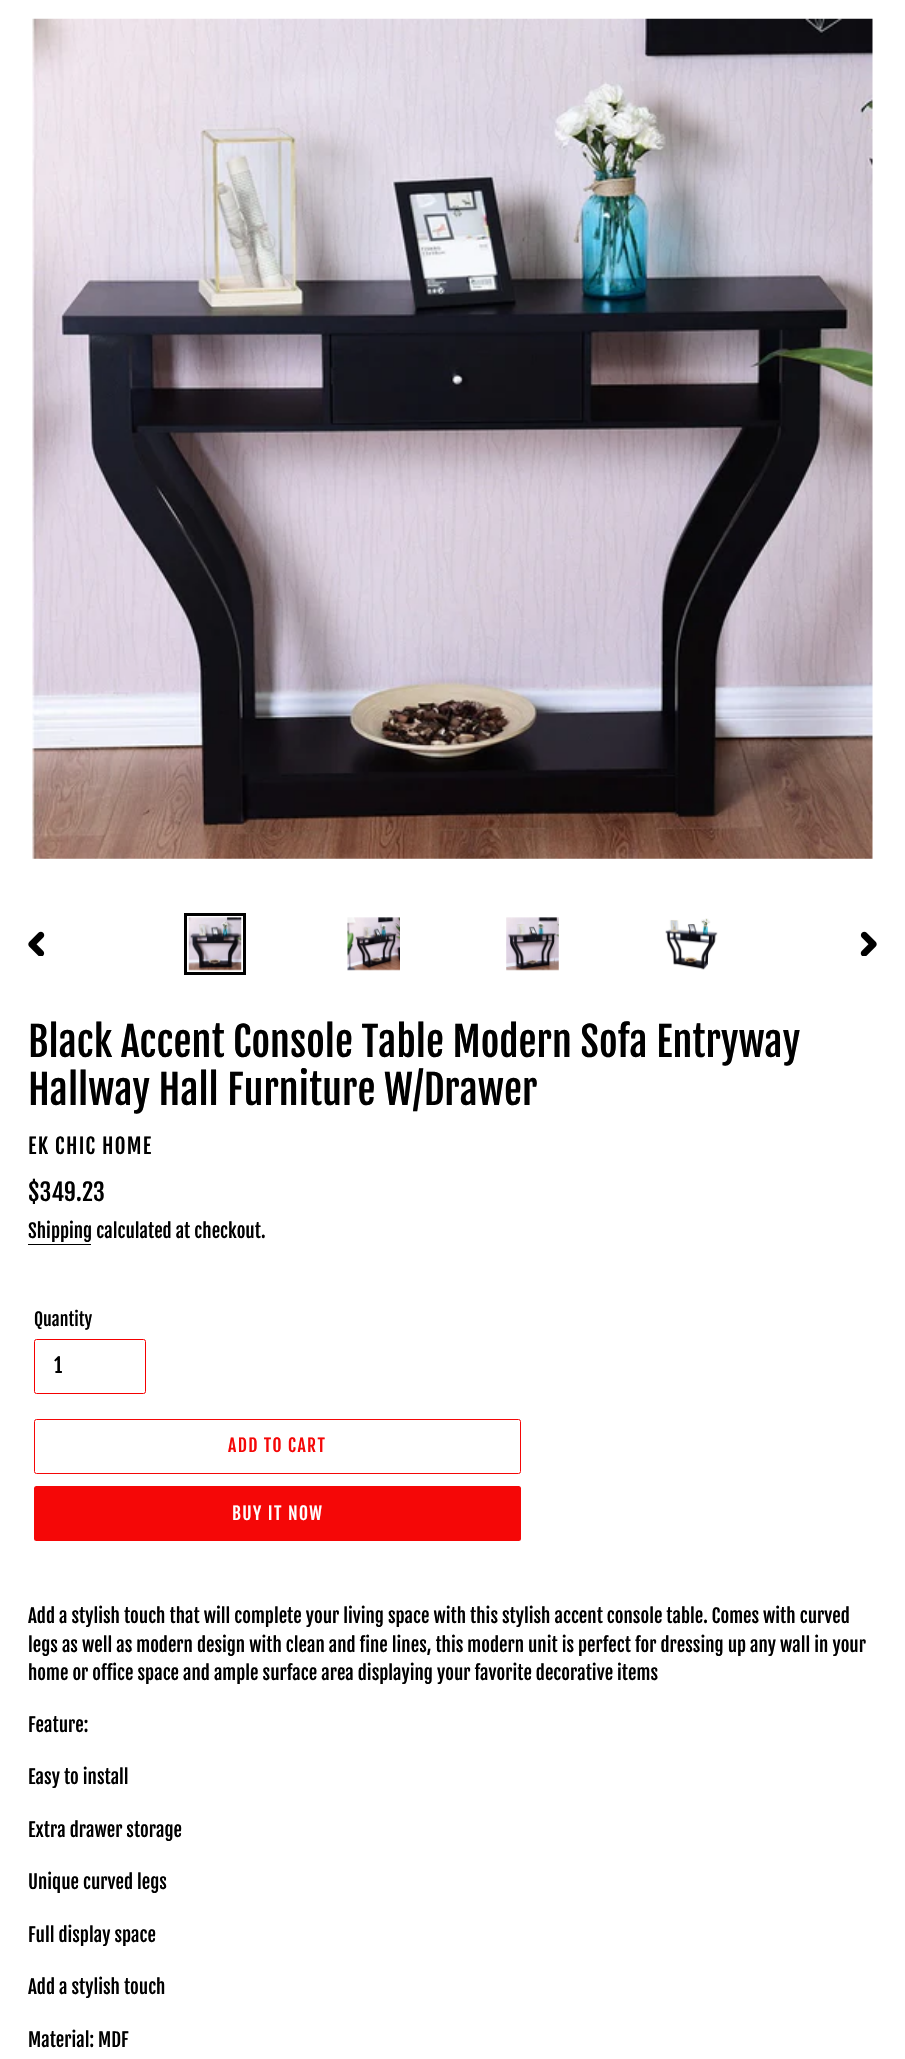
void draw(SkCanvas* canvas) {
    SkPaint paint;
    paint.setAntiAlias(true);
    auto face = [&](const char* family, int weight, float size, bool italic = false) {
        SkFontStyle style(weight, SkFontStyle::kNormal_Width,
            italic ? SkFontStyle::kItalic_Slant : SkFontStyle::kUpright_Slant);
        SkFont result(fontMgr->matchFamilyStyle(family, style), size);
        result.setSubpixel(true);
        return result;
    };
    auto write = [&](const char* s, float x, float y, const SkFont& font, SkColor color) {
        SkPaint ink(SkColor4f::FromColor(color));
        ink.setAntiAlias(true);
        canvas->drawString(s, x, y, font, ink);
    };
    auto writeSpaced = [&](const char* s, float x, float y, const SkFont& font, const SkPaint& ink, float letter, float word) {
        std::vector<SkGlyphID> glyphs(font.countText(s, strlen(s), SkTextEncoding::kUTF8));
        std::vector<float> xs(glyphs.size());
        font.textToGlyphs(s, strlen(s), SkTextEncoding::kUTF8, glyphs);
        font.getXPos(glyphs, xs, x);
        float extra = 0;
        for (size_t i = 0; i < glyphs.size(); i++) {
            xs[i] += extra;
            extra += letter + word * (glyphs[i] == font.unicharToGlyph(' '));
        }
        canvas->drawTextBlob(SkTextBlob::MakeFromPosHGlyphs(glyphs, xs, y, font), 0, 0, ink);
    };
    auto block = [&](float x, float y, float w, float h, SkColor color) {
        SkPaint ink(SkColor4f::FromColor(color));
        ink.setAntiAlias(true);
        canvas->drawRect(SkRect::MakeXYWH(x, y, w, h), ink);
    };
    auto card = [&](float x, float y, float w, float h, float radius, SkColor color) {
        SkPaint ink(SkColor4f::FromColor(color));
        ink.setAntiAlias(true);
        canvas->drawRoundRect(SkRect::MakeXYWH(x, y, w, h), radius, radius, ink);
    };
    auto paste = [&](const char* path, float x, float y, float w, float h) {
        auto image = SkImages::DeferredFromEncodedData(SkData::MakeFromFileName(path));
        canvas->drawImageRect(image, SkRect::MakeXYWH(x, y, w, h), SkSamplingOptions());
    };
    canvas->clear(SK_ColorWHITE);
    paste("pic1.png", 32, 18, 841, 841);
    paste("pic2.png", 28, 931, 17, 25);
    paint.setStyle(SkPaint::kStroke_Style);
    paint.setStrokeWidth(3);
    paint.setColor(SK_ColorBLACK);
    canvas->drawRect(SkRect::MakeXYWH(185.5f, 914.5f, 59, 59), paint);
    paste("pic3.png", 188, 917, 54, 54);
    paste("pic4.png", 347, 917, 53, 54);
    paste("pic5.png", 506, 917, 53, 54);
    paste("pic6.png", 665, 918, 53, 52);
    paste("pic7.png", 860, 931, 17, 25);
    auto kFont1 = face("Fjalla One", 400, 40);
    write("Black Accent Console Table Modern Sofa Entryway", 28, 1057, kFont1, SK_ColorBLACK);
    write("Hallway Hall Furniture W/Drawer", 28, 1105, kFont1, SK_ColorBLACK);
    auto kFont2 = face("Fjalla One", 400, 21);
    paint.setStyle(SkPaint::kFill_Style);
    writeSpaced("EK CHIC HOME", 28, 1154, kFont2, paint, 1.25f, 0);
    auto kFont3 = face("Fjalla One", 400, 23.5f);
    write("$349.23", 28, 1201, kFont3, SK_ColorBLACK);
    auto kFont4 = face("Fjalla One", 400, 18.75f);
    write("Shipping calculated at checkout.", 28, 1238, kFont4, SK_ColorBLACK);
    block(28, 1244, 63, 1, SK_ColorBLACK);
    auto kFont5 = face("Fjalla One", 400, 17.5f);
    write("Quantity", 34, 1326, kFont5, SK_ColorBLACK);
    paint.setStyle(SkPaint::kStroke_Style);
    paint.setStrokeWidth(1);
    paint.setColor(SkColorSetRGB(245, 0, 0));
    canvas->drawRoundRect(SkRect::MakeXYWH(34.5f, 1339.5f, 111, 54), 2, 2, paint);
    auto kFont6 = face("Fjalla One", 400, 20);
    write("1", 54, 1373, kFont6, SK_ColorBLACK);
    paint.setColor(SkColorSetRGB(245, 7, 7));
    canvas->drawRoundRect(SkRect::MakeXYWH(34.5f, 1419.5f, 486, 54), 2, 2, paint);
    paint.setStyle(SkPaint::kFill_Style);
    writeSpaced("ADD TO CART", 228, 1452, kFont5, paint, 1.4f, 0);
    card(34, 1486, 487, 55, 2.5f, SkColorSetRGB(245, 7, 7));
    paint.setColor(SK_ColorWHITE);
    writeSpaced("BUY IT NOW", 232, 1520, kFont5, paint, 1.4f, 0);
    write("Add a stylish touch that will complete your living space with this stylish accent console table. Comes with curved", 28, 1623, kFont4, SK_ColorBLACK);
    write("legs as well as modern design with clean and fine lines, this modern unit is perfect for dressing up any wall in your", 28, 1652, kFont4, SK_ColorBLACK);
    write("home or office space and ample surface area displaying your favorite decorative items", 28, 1680, kFont4, SK_ColorBLACK);
    write("Feature:", 28, 1732, kFont4, SK_ColorBLACK);
    write("Easy to install", 28, 1784, kFont4, SK_ColorBLACK);
    write("Extra drawer storage", 28, 1837, kFont4, SK_ColorBLACK);
    write("Unique curved legs", 28, 1889, kFont4, SK_ColorBLACK);
    write("Full display space", 28, 1942, kFont4, SK_ColorBLACK);
    write("Add a stylish touch", 28, 1994, kFont4, SK_ColorBLACK);
    write("Material: MDF", 28, 2047, kFont4, SK_ColorBLACK);
}
